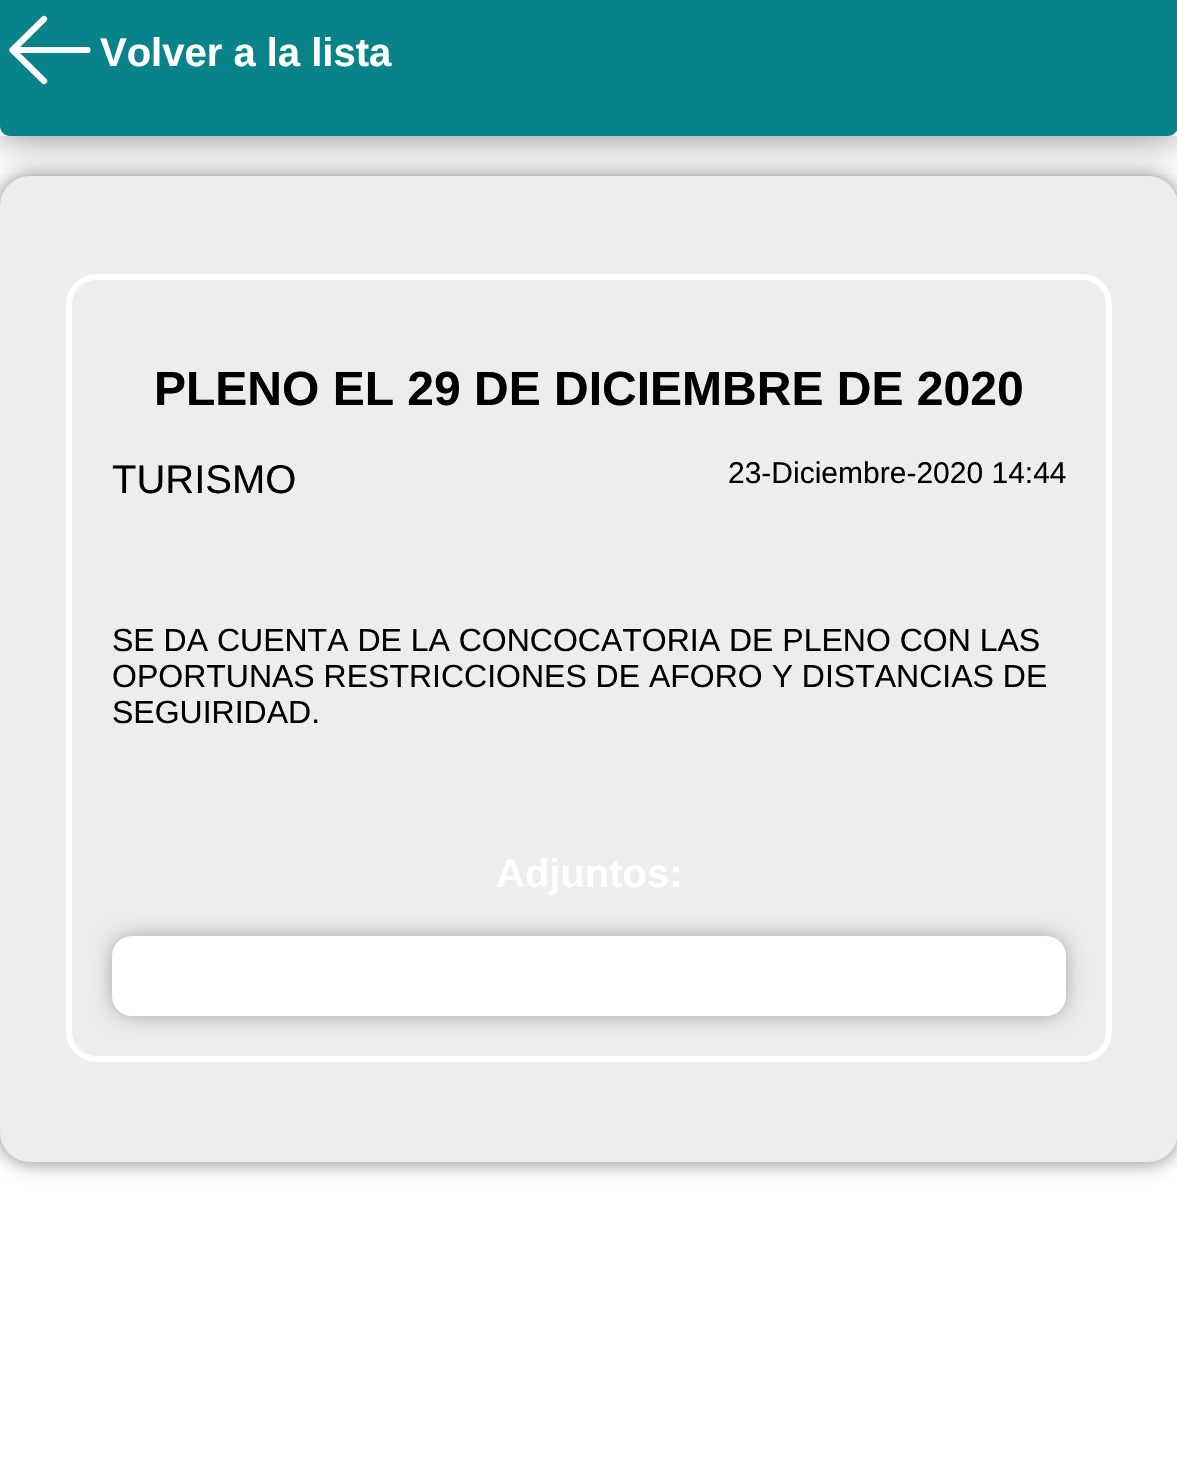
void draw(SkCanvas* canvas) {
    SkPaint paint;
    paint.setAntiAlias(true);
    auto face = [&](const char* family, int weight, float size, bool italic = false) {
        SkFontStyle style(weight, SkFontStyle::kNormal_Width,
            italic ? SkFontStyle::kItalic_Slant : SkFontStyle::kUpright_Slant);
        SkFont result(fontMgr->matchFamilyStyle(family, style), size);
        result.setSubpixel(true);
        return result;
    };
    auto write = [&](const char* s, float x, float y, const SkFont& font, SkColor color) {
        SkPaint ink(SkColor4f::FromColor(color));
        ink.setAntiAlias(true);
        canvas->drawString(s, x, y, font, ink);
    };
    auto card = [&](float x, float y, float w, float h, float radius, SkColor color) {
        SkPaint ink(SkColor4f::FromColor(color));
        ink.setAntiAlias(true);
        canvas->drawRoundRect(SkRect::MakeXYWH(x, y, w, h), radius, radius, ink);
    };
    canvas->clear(SK_ColorWHITE);
    canvas->save();
    canvas->clipRect(SkRect::MakeXYWH(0, 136, 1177, 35));
    paint.setColor(SkColorSetARGB(128, 0, 0, 0));
    paint.setMaskFilter(SkMaskFilter::MakeBlur(kNormal_SkBlurStyle, 20));
    canvas->drawRect(SkRect::MakeXYWH(0, 0, 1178, 136), paint);
    paint.setMaskFilter(nullptr);
    canvas->restore();
    paint.setColor(SkColorSetRGB(8, 131, 138));
    canvas->drawPath(SkPathBuilder().moveTo(0, 0).lineTo(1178, 0).lineTo(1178, 126).cubicTo(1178, 131.5f, 1173.5f, 136, 1168, 136).lineTo(10, 136).cubicTo(4.5f, 136, 0, 131.5f, 0, 126).close().detach(), paint);
    paint.setStyle(SkPaint::kStroke_Style);
    paint.setStrokeWidth(6.2f);
    paint.setStrokeCap(SkPaint::kRound_Cap);
    paint.setStrokeJoin(SkPaint::kRound_Join);
    paint.setColor(SK_ColorWHITE);
    canvas->drawPath(SkPathBuilder().moveTo(44, 81).lineTo(12.5f, 50).moveTo(12.5f, 50).lineTo(44, 19).moveTo(12.5f, 50).lineTo(87.5f, 50).detach(), paint);
    auto kFont1 = face("Liberation Sans", 700, 40);
    write("Volver a la lista", 100, 66, kFont1, SK_ColorWHITE);
    paint.setStyle(SkPaint::kFill_Style);
    paint.setColor(SkColorSetARGB(128, 0, 0, 0));
    paint.setMaskFilter(SkMaskFilter::MakeBlur(kNormal_SkBlurStyle, 10));
    canvas->drawRoundRect(SkRect::MakeXYWH(0, 176, 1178, 986), 30, 30, paint);
    paint.setMaskFilter(nullptr);
    card(0, 176, 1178, 986, 30, SkColorSetRGB(237, 237, 237));
    paint.setStyle(SkPaint::kStroke_Style);
    paint.setStrokeWidth(6);
    paint.setStrokeCap(SkPaint::kButt_Cap);
    paint.setStrokeJoin(SkPaint::kMiter_Join);
    paint.setColor(SK_ColorWHITE);
    canvas->drawRoundRect(SkRect::MakeXYWH(69, 277, 1040, 782), 27, 27, paint);
    auto kFont2 = face("Liberation Sans", 700, 48);
    write("PLENO EL 29 DE DICIEMBRE DE 2020", 154, 405, kFont2, SK_ColorBLACK);
    auto kFont3 = face("Liberation Sans", 400, 40);
    write("TURISMO", 112, 493, kFont3, SK_ColorBLACK);
    auto kFont4 = face("Liberation Sans", 400, 30);
    write("23-Diciembre-2020 14:44", 728, 483, kFont4, SK_ColorBLACK);
    auto kFont5 = face("Liberation Sans", 400, 32);
    write("SE DA CUENTA DE LA CONCOCATORIA DE PLENO CON LAS", 112, 651, kFont5, SK_ColorBLACK);
    write("OPORTUNAS RESTRICCIONES DE AFORO Y DISTANCIAS DE", 112, 687, kFont5, SK_ColorBLACK);
    write("SEGUIRIDAD.", 112, 723, kFont5, SK_ColorBLACK);
    write("Adjuntos:", 496, 887, kFont1, SK_ColorWHITE);
    paint.setStyle(SkPaint::kFill_Style);
    paint.setColor(SkColorSetARGB(77, 0, 0, 0));
    paint.setMaskFilter(SkMaskFilter::MakeBlur(kNormal_SkBlurStyle, 10));
    canvas->drawRoundRect(SkRect::MakeXYWH(112, 936, 954, 80), 20, 20, paint);
    paint.setMaskFilter(nullptr);
    card(112, 936, 954, 80, 20, SK_ColorWHITE);
}
